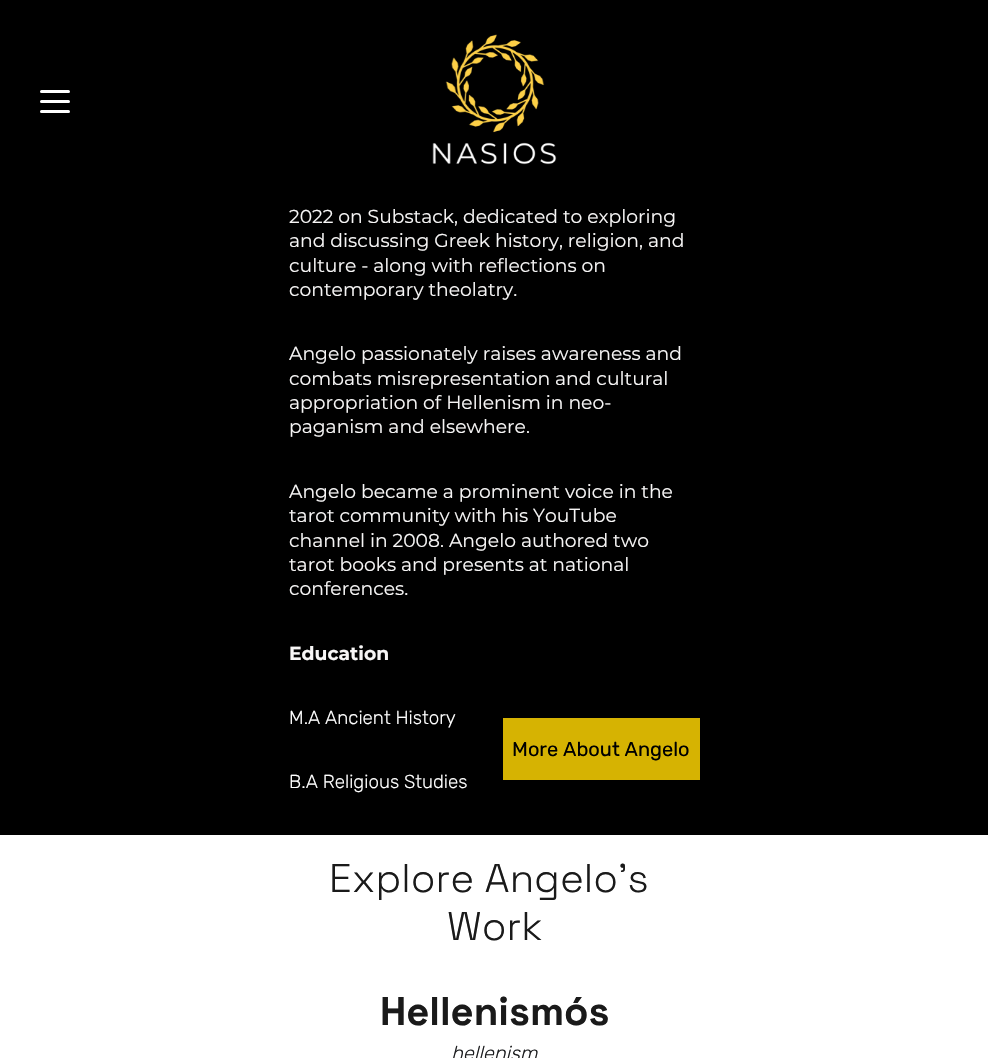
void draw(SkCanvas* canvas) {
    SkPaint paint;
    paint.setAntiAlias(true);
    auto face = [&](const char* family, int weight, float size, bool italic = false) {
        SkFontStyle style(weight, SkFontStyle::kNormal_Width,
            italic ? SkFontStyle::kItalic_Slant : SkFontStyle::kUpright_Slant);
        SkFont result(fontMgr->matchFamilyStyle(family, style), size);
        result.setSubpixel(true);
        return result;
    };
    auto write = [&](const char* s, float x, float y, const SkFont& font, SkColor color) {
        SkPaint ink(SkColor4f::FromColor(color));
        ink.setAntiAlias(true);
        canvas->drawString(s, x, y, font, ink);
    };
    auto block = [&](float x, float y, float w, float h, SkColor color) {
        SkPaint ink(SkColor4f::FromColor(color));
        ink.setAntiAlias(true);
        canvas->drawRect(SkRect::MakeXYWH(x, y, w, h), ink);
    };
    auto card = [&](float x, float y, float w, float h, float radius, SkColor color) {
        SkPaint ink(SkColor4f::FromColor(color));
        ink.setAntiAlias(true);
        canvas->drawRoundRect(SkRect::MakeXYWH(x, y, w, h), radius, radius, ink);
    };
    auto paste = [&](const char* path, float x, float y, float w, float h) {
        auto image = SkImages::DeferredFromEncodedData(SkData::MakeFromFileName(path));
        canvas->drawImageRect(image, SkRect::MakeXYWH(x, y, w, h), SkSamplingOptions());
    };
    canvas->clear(SK_ColorWHITE);
    block(0, 201, 988, 634, SK_ColorBLACK);
    paint.setColor(SkColorSetARGB(26, 0, 0, 0));
    paint.setMaskFilter(SkMaskFilter::MakeBlur(kNormal_SkBlurStyle, 9));
    canvas->drawRect(SkRect::MakeXYWH(0, 8, 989, 201), paint);
    paint.setMaskFilter(nullptr);
    block(0, 0, 988, 201, SK_ColorBLACK);
    card(40, 90, 30, 3, 1.5f, SK_ColorWHITE);
    card(40, 100, 30, 3, 1.5f, SK_ColorWHITE);
    card(40, 110, 30, 3, 1.5f, SK_ColorWHITE);
    paste("pic1.png", 432, 34, 125, 131);
    auto kFont1 = face("Montserrat", 100, 18.75f);
    write("2022 on Substack, dedicated to exploring", 289, 223, kFont1, SkColorSetRGB(247, 246, 246));
    write("and discussing Greek history, religion, and", 289, 247, kFont1, SkColorSetRGB(247, 246, 246));
    write("culture - along with reflections on", 289, 272, kFont1, SkColorSetRGB(247, 246, 246));
    write("contemporary theolatry.", 289, 296, kFont1, SkColorSetRGB(247, 246, 246));
    write("Angelo passionately raises awareness and", 289, 360, kFont1, SkColorSetRGB(247, 246, 246));
    write("combats misrepresentation and cultural", 289, 385, kFont1, SkColorSetRGB(247, 246, 246));
    write("appropriation of Hellenism in neo-", 289, 409, kFont1, SkColorSetRGB(247, 246, 246));
    write("paganism and elsewhere.", 289, 433, kFont1, SkColorSetRGB(247, 246, 246));
    write("Angelo became a prominent voice in the", 289, 498, kFont1, SkColorSetRGB(247, 246, 246));
    write("tarot community with his YouTube", 289, 522, kFont1, SkColorSetRGB(247, 246, 246));
    write("channel in 2008. Angelo authored two", 289, 547, kFont1, SkColorSetRGB(247, 246, 246));
    write("tarot books and presents at national", 289, 571, kFont1, SkColorSetRGB(247, 246, 246));
    write("conferences.", 289, 595, kFont1, SkColorSetRGB(247, 246, 246));
    auto kFont2 = face("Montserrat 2", 100, 18.75f);
    write("Education", 289, 660, kFont2, SkColorSetRGB(247, 246, 246));
    auto kFont3 = face("Rubik", 300, 18.75f);
    write("M.A Ancient History", 289, 724, kFont3, SK_ColorWHITE);
    write("B.A Religious Studies", 289, 788, kFont3, SK_ColorWHITE);
    block(503, 718, 197, 62, SkColorSetRGB(214, 179, 2));
    auto kFont4 = face("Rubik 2", 300, 20);
    write("More About Angelo", 512, 756, kFont4, SK_ColorBLACK);
    auto kFont5 = face("Space Grotesk", 300, 40);
    write("Explore Angelo's", 329, 892, kFont5, SkColorSetRGB(26, 26, 26));
    write("Work", 447, 940, kFont5, SkColorSetRGB(26, 26, 26));
    auto kFont6 = face("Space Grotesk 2", 300, 40);
    write("Hellenismós", 380, 1025, kFont6, SkColorSetRGB(26, 26, 26));
    auto kFont7 = face("Rubik", 300, 20, true);
    write("hellenism", 451, 1060, kFont7, SkColorSetRGB(29, 30, 32));
}
